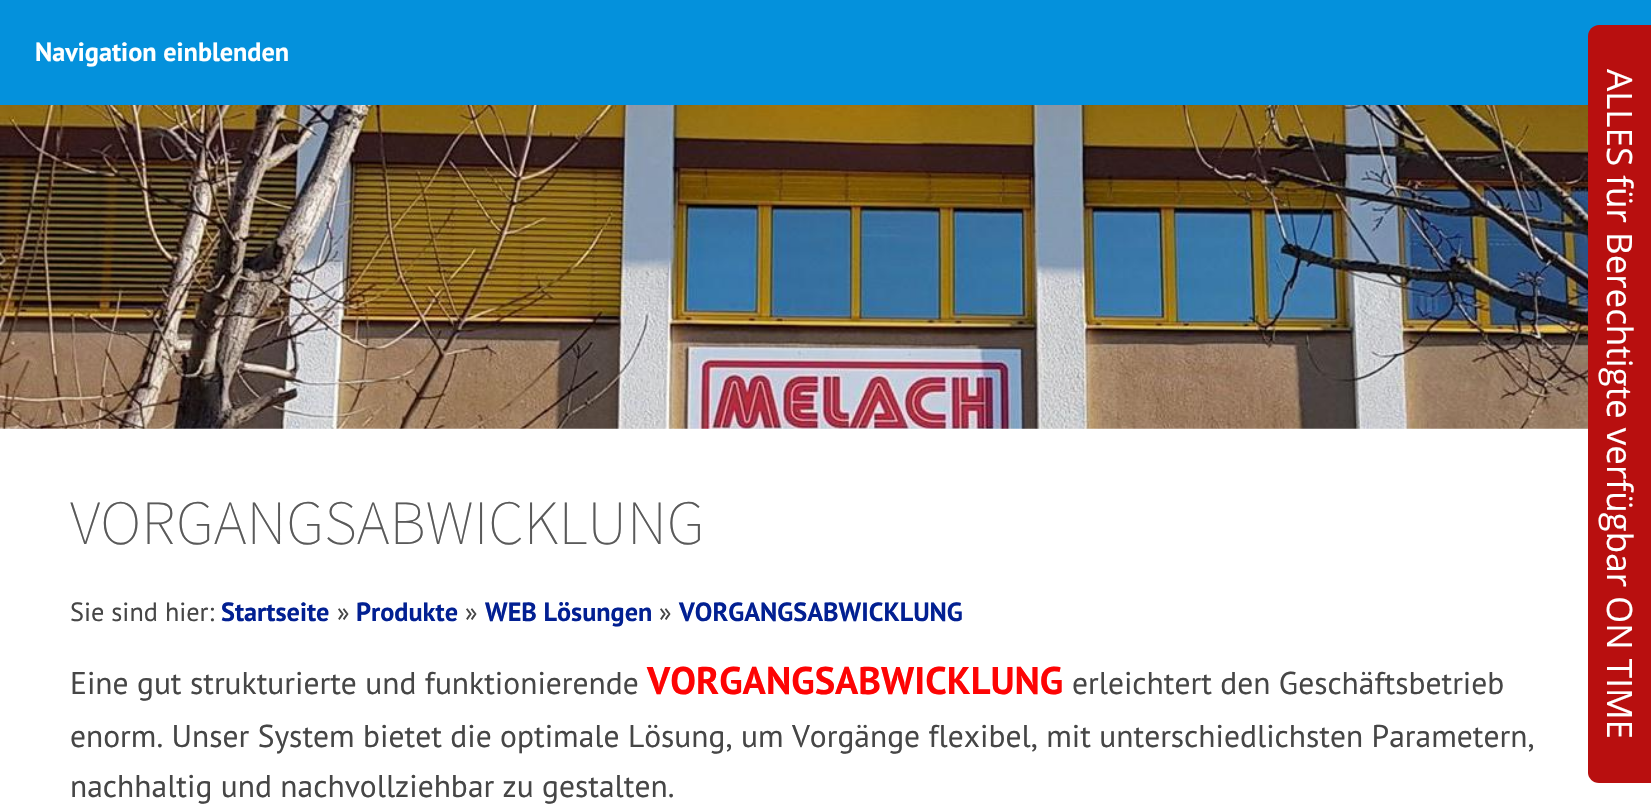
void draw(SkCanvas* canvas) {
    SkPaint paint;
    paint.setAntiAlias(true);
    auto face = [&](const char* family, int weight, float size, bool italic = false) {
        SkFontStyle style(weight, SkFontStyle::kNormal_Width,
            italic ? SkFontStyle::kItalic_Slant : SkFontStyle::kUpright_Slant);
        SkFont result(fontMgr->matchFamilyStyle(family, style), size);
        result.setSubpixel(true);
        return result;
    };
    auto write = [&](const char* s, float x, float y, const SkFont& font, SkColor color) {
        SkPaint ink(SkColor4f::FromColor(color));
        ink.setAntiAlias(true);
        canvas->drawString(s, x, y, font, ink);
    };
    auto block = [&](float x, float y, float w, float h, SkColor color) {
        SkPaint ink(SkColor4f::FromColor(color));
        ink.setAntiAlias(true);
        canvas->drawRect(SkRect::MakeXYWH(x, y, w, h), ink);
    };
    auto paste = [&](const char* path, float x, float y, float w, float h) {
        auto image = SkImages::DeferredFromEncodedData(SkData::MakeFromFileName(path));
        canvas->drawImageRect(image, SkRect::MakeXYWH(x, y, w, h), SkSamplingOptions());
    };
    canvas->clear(SK_ColorWHITE);
    block(0, 0, 1651, 105, SkColorSetRGB(4, 145, 220));
    auto kFont1 = face("PT Sans", 700, 26.25f);
    write("Navigation einblenden", 35, 61, kFont1, SK_ColorWHITE);
    paste("pic1.png", 0, 105, 1588, 324);
    auto kFont2 = face("Source Sans Pro", 200, 63);
    write("VORGANGSABWICKLUNG", 70, 544, kFont2, SkColorSetRGB(90, 90, 90));
    auto kFont3 = face("PT Sans", 400, 26.25f);
    write("Sie sind hier:", 70, 621, kFont3, SkColorSetRGB(70, 70, 70));
    write("Startseite", 221, 621, kFont1, SkColorSetRGB(2, 32, 146));
    write("»", 337, 621, kFont3, SkColorSetRGB(70, 70, 70));
    write("Produkte", 356, 621, kFont1, SkColorSetRGB(2, 32, 146));
    write("»", 465, 621, kFont3, SkColorSetRGB(70, 70, 70));
    write("WEB Lösungen", 485, 621, kFont1, SkColorSetRGB(2, 32, 146));
    write("»", 659, 621, kFont3, SkColorSetRGB(70, 70, 70));
    write("VORGANGSABWICKLUNG", 679, 621, kFont1, SkColorSetRGB(2, 32, 146));
    paint.setColor(SkColorSetRGB(184, 15, 15));
    canvas->drawPath(SkPathBuilder().moveTo(1651, 25).lineTo(1651, 783).lineTo(1599, 783).cubicTo(1593, 783, 1588, 778, 1588, 773).lineTo(1588, 36).cubicTo(1588, 30, 1593, 25, 1599, 25).close().detach(), paint);
    auto kFont4 = face("Open Sans", 400, 35);
    canvas->save();
    canvas->rotate(90, 1607, 69);
    write("ALLES für Berechtigte verfügbar ON TIME", 1607, 69, kFont4, SK_ColorWHITE);
    canvas->restore();
    auto kFont5 = face("PT Sans", 400, 31.5f);
    write("Eine gut strukturierte und funktionierende", 70, 694, kFont5, SkColorSetRGB(70, 70, 70));
    auto kFont6 = face("PT Sans", 700, 38.5f);
    write("VORGANGSABWICKLUNG", 647, 694, kFont6, SkColorSetRGB(253, 4, 4));
    write("erleichtert den Geschäftsbetrieb", 1072, 694, kFont5, SkColorSetRGB(70, 70, 70));
    write("enorm. Unser System bietet die optimale Lösung, um Vorgänge flexibel, mit unterschiedlichsten Parametern,", 70, 747, kFont5, SkColorSetRGB(70, 70, 70));
    write("nachhaltig und nachvollziehbar zu gestalten.", 70, 797, kFont5, SkColorSetRGB(70, 70, 70));
}
